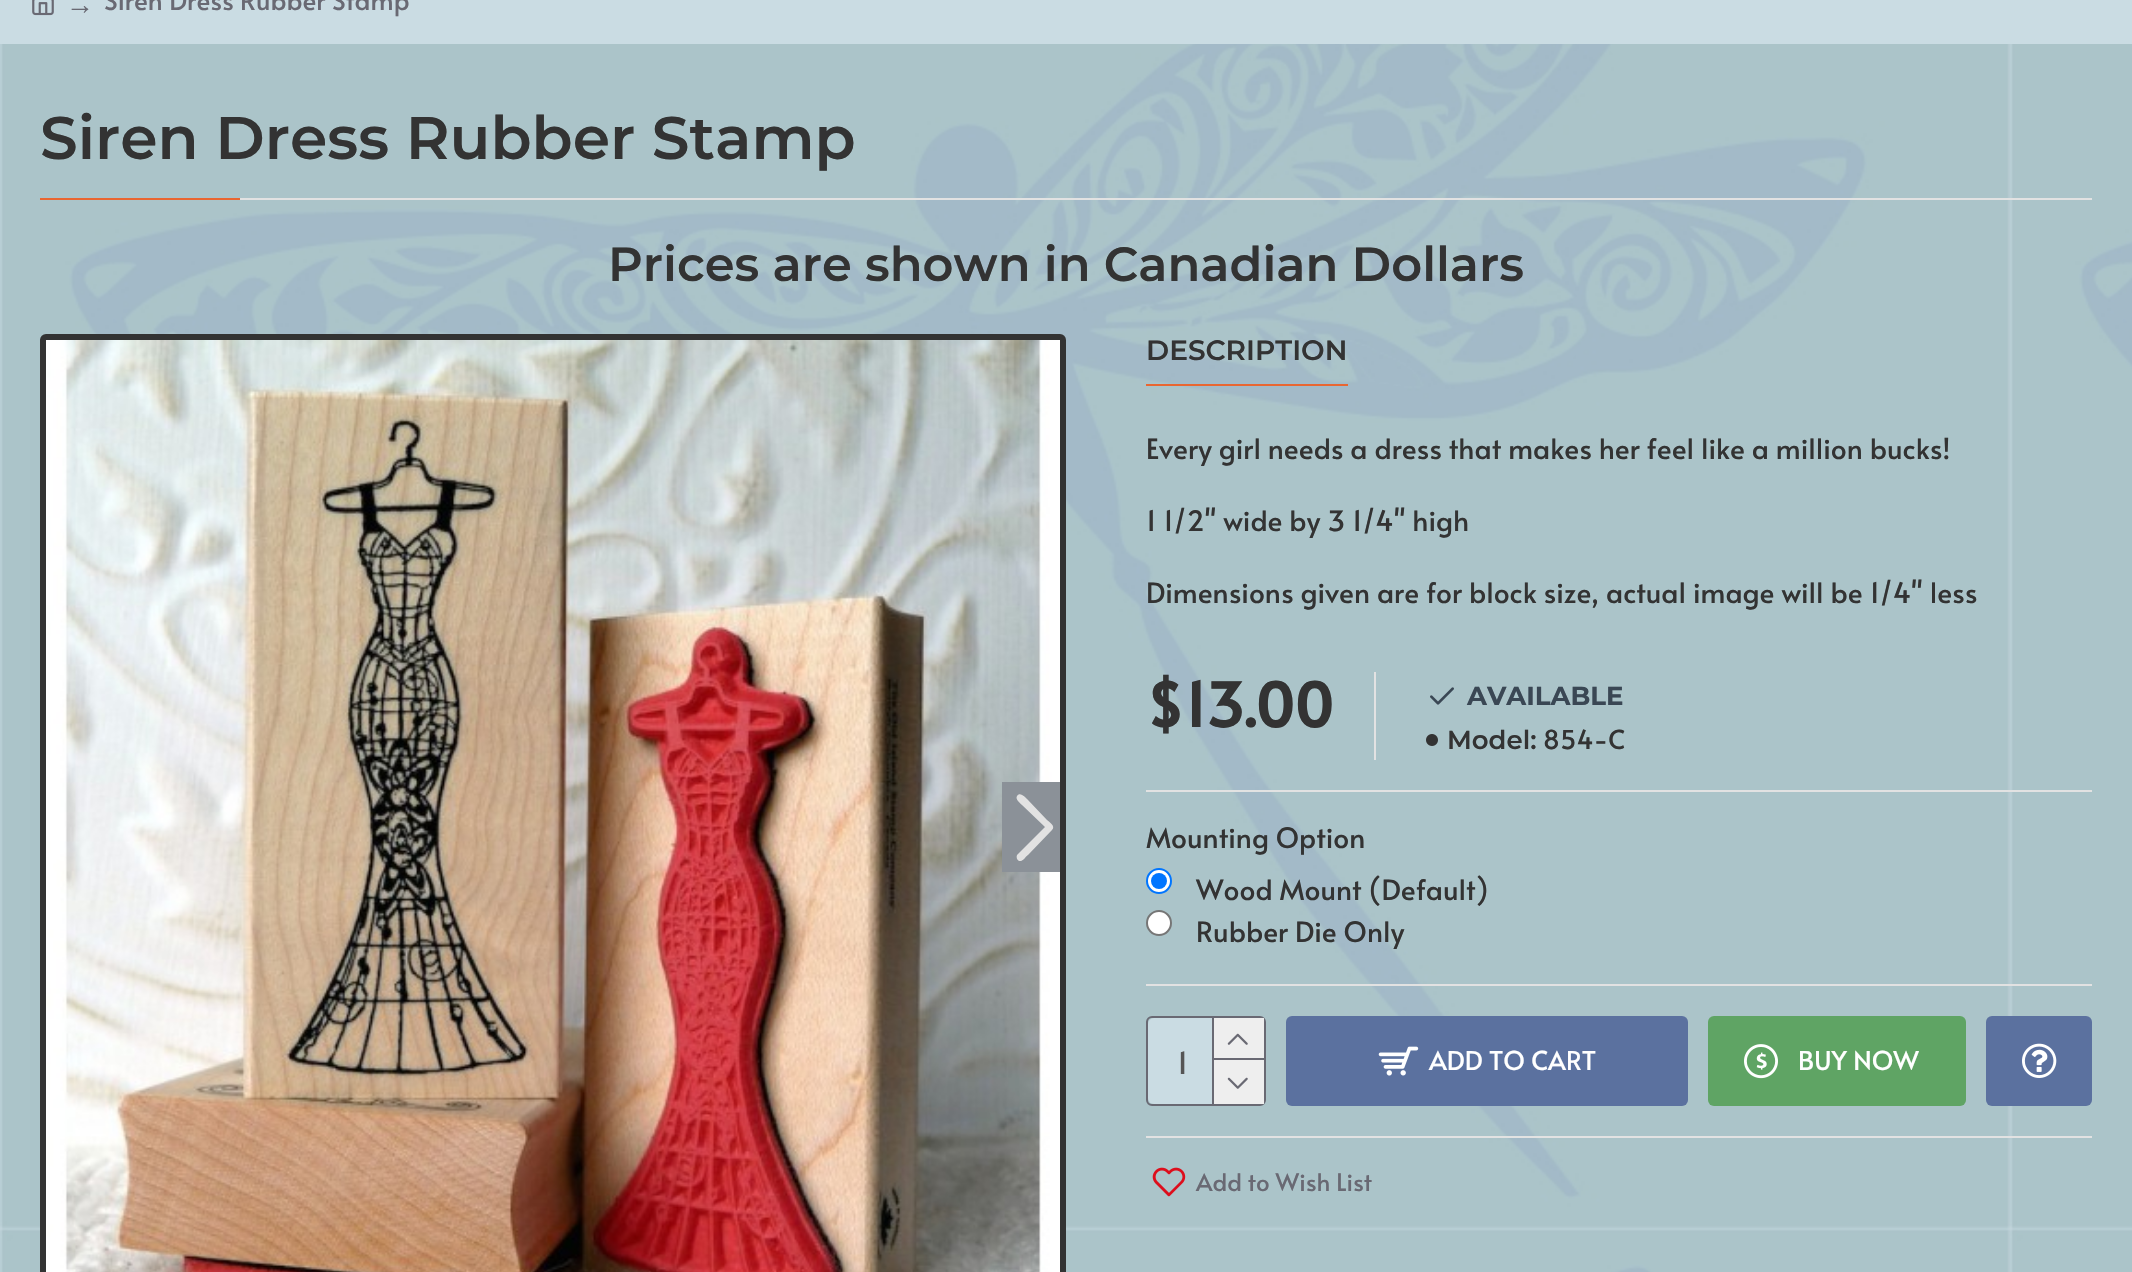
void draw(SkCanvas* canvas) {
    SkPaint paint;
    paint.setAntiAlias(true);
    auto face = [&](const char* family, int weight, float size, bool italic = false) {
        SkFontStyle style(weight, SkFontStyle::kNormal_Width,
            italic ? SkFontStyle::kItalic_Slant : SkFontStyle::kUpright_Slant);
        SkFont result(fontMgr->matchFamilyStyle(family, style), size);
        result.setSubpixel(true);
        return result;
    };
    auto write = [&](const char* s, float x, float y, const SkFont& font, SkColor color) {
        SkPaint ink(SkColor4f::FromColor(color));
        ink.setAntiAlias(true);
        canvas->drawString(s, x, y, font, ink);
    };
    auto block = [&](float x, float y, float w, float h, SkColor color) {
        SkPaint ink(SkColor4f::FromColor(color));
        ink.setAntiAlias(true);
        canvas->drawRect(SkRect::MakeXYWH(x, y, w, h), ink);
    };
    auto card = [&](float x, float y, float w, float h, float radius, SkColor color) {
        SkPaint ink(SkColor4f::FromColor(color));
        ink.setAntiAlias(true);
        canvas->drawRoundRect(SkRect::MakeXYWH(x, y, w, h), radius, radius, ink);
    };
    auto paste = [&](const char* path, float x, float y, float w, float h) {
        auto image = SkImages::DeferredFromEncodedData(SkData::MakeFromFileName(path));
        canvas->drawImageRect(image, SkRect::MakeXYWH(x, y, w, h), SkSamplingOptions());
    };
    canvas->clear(SK_ColorWHITE);
    paste("pic1.png", 0, 44, 2132, 1228);
    block(0, 0, 2132, 44, SkColorSetRGB(202, 220, 227));
    paste("pic2.png", 32, 0, 22, 16);
    auto kFont1 = face("Liberation Serif", 400, 28);
    write("→", 66, 14, kFont1, SkColorSetRGB(105, 105, 115));
    auto kFont2 = face("Alata", 400, 26);
    write("Siren Dress Rubber Stamp", 104, 10, kFont2, SkColorSetRGB(105, 105, 115));
    block(240, 198, 1852, 2, SkColorSetRGB(226, 226, 226));
    auto kFont3 = face("Montserrat", 600, 60);
    write("Siren Dress Rubber Stamp", 40, 159, kFont3, SkColorSetRGB(51, 51, 51));
    block(40, 198, 200, 2, SkColorSetRGB(233, 102, 49));
    auto kFont4 = face("Montserrat", 600, 48);
    write("Prices are shown in Canadian Dollars", 608, 281, kFont4, SkColorSetRGB(51, 51, 51));
    paint.setStyle(SkPaint::kStroke_Style);
    paint.setStrokeWidth(6);
    paint.setColor(SkColorSetRGB(51, 51, 51));
    canvas->drawRoundRect(SkRect::MakeXYWH(43, 337, 1020, 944), 3, 3, paint);
    paste("pic3.png", 46, 340, 1014, 932);
    block(1002, 782, 58, 90, SkColorSetRGB(139, 145, 152));
    paint.setStyle(SkPaint::kFill_Style);
    paint.setColor(SkColorSetRGB(226, 226, 226));
    canvas->drawPath(SkPathBuilder().moveTo(1052, 830).lineTo(1028, 855).cubicTo(1026, 856, 1023, 862, 1019, 861).cubicTo(1017, 860, 1016, 857, 1017, 855).lineTo(1045, 827).lineTo(1022, 805).cubicTo(1020, 803, 1015, 799, 1017, 796).cubicTo(1020, 791, 1026, 798, 1028, 800).lineTo(1047, 820).cubicTo(1049, 822, 1056, 826, 1052, 830).close().detach(), paint);
    block(1146, 384, 202, 2, SkColorSetRGB(233, 102, 49));
    auto kFont5 = face("Montserrat", 600, 28);
    write("DESCRIPTION", 1146, 360, kFont5, SkColorSetRGB(51, 51, 51));
    auto kFont6 = face("Alata", 400, 28);
    write("Every girl needs a dress that makes her feel like a million bucks!", 1146, 459, kFont6, SkColorSetRGB(51, 51, 51));
    write("1 1/2\" wide by 3 1/4\" high", 1146, 531, kFont6, SkColorSetRGB(51, 51, 51));
    write("Dimensions given are for block size, actual image will be 1/4\" less", 1146, 603, kFont6, SkColorSetRGB(51, 51, 51));
    auto kFont7 = face("Alata", 700, 60);
    write("$13.00", 1146, 727, kFont7, SkColorSetRGB(51, 51, 51));
    block(1374, 672, 2, 88, SkColorSetRGB(226, 226, 226));
    paste("pic4.png", 1430, 687, 24, 18);
    auto kFont8 = face("Montserrat", 700, 26);
    write("AVAILABLE", 1467, 705, kFont8, SkColorSetRGB(58, 71, 84));
    paste("pic5.png", 1426, 734, 12, 12);
    auto kFont9 = face("Montserrat", 600, 26);
    write("Model:", 1447, 749, kFont9, SkColorSetRGB(51, 51, 51));
    write("854-C", 1543, 749, kFont2, SkColorSetRGB(51, 51, 51));
    block(1146, 790, 946, 2, SkColorSetRGB(226, 226, 226));
    block(1146, 984, 946, 2, SkColorSetRGB(226, 226, 226));
    write("Mounting Option", 1146, 848, kFont6, SkColorSetRGB(51, 51, 51));
    paint.setColor(SK_ColorWHITE);
    canvas->drawCircle(1159, 881, 12, paint);
    paint.setStyle(SkPaint::kStroke_Style);
    paint.setStrokeWidth(2);
    paint.setColor(SkColorSetRGB(0, 117, 255));
    canvas->drawCircle(1159, 881, 12, paint);
    paint.setStyle(SkPaint::kFill_Style);
    canvas->drawCircle(1159, 881, 8, paint);
    write("Wood Mount (Default)", 1196, 900, kFont6, SkColorSetRGB(51, 51, 51));
    paint.setColor(SK_ColorWHITE);
    canvas->drawCircle(1159, 923, 12, paint);
    paint.setStyle(SkPaint::kStroke_Style);
    paint.setColor(SkColorSetRGB(118, 118, 118));
    canvas->drawCircle(1159, 923, 12, paint);
    write("Rubber Die Only", 1196, 942, kFont6, SkColorSetRGB(51, 51, 51));
    paint.setColor(SkColorSetRGB(105, 105, 115));
    canvas->drawRoundRect(SkRect::MakeXYWH(1147, 1017, 118, 88), 5, 5, paint);
    card(1148, 1018, 116, 86, 6, SkColorSetRGB(202, 220, 227));
    auto kFont10 = face("Alata", 400, 30);
    write("1", 1177, 1074, kFont10, SkColorSetRGB(85, 85, 85));
    block(1212, 1018, 2, 86, SkColorSetRGB(105, 105, 115));
    block(1214, 1018, 50, 40, SkColorSetRGB(238, 238, 238));
    block(1214, 1058, 50, 2, SkColorSetRGB(105, 105, 115));
    paste("pic6.png", 1227, 1033, 21, 12);
    block(1214, 1060, 50, 44, SkColorSetRGB(238, 238, 238));
    paste("pic7.png", 1227, 1077, 21, 12);
    card(1286, 1016, 402, 90, 6, SkColorSetRGB(91, 113, 159));
    paste("pic8.png", 1378, 1046, 41, 30);
    write("ADD TO CART", 1429, 1070, kFont2, SK_ColorWHITE);
    card(1708, 1016, 258, 90, 6, SkColorSetRGB(95, 164, 100));
    paste("pic9.png", 1744, 1044, 34, 35);
    write("BUY NOW", 1798, 1070, kFont2, SK_ColorWHITE);
    card(1986, 1016, 106, 90, 6, SkColorSetRGB(91, 113, 159));
    paste("pic10.png", 2022, 1043, 35, 35);
    block(1146, 1136, 946, 2, SkColorSetRGB(226, 226, 226));
    paste("pic11.png", 1152, 1167, 34, 30);
    auto kFont11 = face("Alata", 400, 24);
    write("Add to Wish List", 1196, 1191, kFont11, SkColorSetRGB(105, 105, 115));
}
